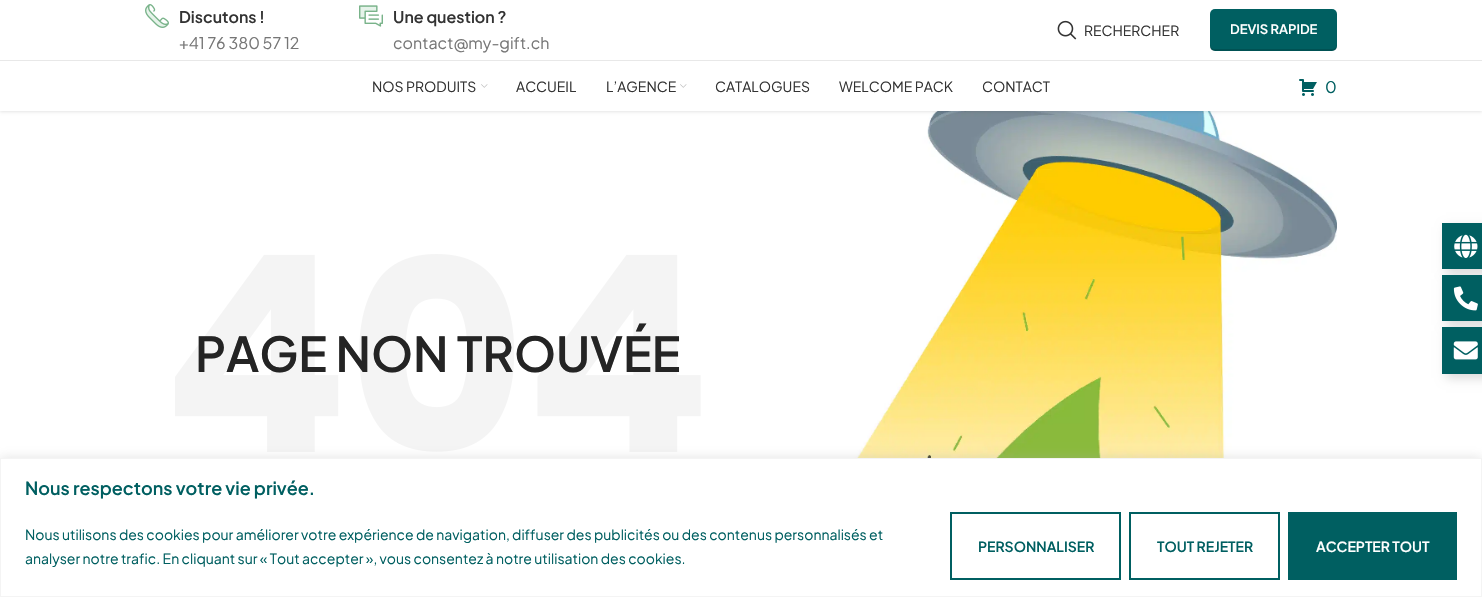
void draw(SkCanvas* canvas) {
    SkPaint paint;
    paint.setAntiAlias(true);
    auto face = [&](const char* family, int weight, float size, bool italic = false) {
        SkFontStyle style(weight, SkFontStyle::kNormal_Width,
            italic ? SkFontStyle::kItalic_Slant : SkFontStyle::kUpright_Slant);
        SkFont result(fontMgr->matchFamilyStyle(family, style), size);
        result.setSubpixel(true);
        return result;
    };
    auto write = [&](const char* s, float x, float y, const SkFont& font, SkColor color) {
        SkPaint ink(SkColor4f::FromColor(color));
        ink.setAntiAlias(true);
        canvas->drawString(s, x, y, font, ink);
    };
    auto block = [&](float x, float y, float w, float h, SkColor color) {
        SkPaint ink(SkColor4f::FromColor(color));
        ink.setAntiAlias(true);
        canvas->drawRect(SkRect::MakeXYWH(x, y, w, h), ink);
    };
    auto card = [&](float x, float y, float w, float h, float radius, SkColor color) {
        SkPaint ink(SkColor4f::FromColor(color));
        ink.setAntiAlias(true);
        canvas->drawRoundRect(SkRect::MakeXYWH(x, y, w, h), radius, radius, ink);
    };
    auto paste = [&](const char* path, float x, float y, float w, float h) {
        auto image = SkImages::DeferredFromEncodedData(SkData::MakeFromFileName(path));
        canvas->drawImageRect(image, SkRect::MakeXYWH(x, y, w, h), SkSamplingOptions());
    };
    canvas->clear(SK_ColorWHITE);
    paste("pic7.png", 771, 111, 566, 347);
    paint.setColor(SkColorSetARGB(26, 0, 0, 0));
    paint.setMaskFilter(SkMaskFilter::MakeBlur(kNormal_SkBlurStyle, 1.5f));
    canvas->drawRect(SkRect::MakeXYWH(0, 1, 1482, 111), paint);
    paint.setMaskFilter(nullptr);
    block(0, 0, 1482, 60, SK_ColorWHITE);
    block(0, 60, 1482, 1, SkColorSetRGB(232, 232, 232));
    paste("pic1.png", 145, 4, 24, 24);
    auto kFont1 = face("Plus Jakarta Sans", 600, 16);
    write("Discutons !", 179, 23, kFont1, SkColorSetRGB(51, 51, 51));
    auto kFont2 = face("Plus Jakarta Sans", 400, 16);
    write("+41 76 380 57 12", 179, 49, kFont2, SkColorSetRGB(118, 118, 118));
    paste("pic2.png", 359, 5, 24, 22);
    write("Une question ?", 393, 23, kFont1, SkColorSetRGB(51, 51, 51));
    write("contact@my-gift.ch", 393, 49, kFont2, SkColorSetRGB(118, 118, 118));
    paste("pic3.png", 1057, 20, 20, 20);
    auto kFont3 = face("Plus Jakarta Sans", 400, 14);
    write("RECHERCHER", 1084, 36, kFont3, SkColorSetRGB(51, 51, 51));
    card(1210, 9, 127, 42, 5, SkColorSetRGB(0, 95, 97));
    paint.setColor(SkColorSetARGB(38, 0, 0, 0));
    canvas->drawPath(SkPathBuilder().moveTo(1210, 44).lineTo(1210, 46).cubicTo(1210, 49, 1212, 51, 1215, 51).lineTo(1332, 51).cubicTo(1335, 51, 1337, 49, 1337, 46).lineTo(1337, 44).cubicTo(1337, 47, 1335, 49, 1332, 49).lineTo(1215, 49).cubicTo(1212, 49, 1210, 47, 1210, 44).close().detach(), paint);
    auto kFont4 = face("Plus Jakarta Sans", 600, 13);
    write("DEVIS RAPIDE", 1230, 34, kFont4, SK_ColorWHITE);
    block(0, 61, 1482, 50, SK_ColorWHITE);
    write("NOS PRODUITS", 372, 92, kFont3, SkColorSetRGB(51, 51, 51));
    paste("pic4.png", 481, 84, 7, 4);
    write("ACCUEIL", 516, 92, kFont3, SkColorSetRGB(51, 51, 51));
    write("L’AGENCE", 606, 92, kFont3, SkColorSetRGB(51, 51, 51));
    paste("pic4.png", 680, 84, 7, 4);
    write("CATALOGUES", 715, 92, kFont3, SkColorSetRGB(51, 51, 51));
    write("WELCOME PACK", 839, 92, kFont3, SkColorSetRGB(51, 51, 51));
    write("CONTACT", 982, 92, kFont3, SkColorSetRGB(51, 51, 51));
    paste("pic5.png", 1299, 79, 18, 17);
    write("0", 1325, 93, kFont2, SkColorSetRGB(0, 95, 97));
    paste("pic6.png", 175, 254, 526, 198);
    auto kFont5 = face("Plus Jakarta Sans", 600, 48);
    write("PAGE NON TROUVÉE", 195, 372, kFont5, SkColorSetRGB(36, 36, 36));
    paint.setMaskFilter(SkMaskFilter::MakeBlur(kNormal_SkBlurStyle, 5));
    canvas->drawRect(SkRect::MakeXYWH(1446, 227, 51, 46), paint);
    paint.setMaskFilter(nullptr);
    block(1442, 223, 40, 46, SkColorSetRGB(0, 95, 97));
    paste("pic8.png", 1454, 234, 24, 24);
    paint.setMaskFilter(SkMaskFilter::MakeBlur(kNormal_SkBlurStyle, 5));
    canvas->drawRect(SkRect::MakeXYWH(1446, 279, 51, 46), paint);
    paint.setMaskFilter(nullptr);
    block(1442, 275, 40, 46, SkColorSetRGB(0, 95, 97));
    paste("pic9.png", 1453, 286, 25, 25);
    paint.setMaskFilter(SkMaskFilter::MakeBlur(kNormal_SkBlurStyle, 5));
    canvas->drawRect(SkRect::MakeXYWH(1446, 331, 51, 47), paint);
    paint.setMaskFilter(nullptr);
    block(1442, 327, 40, 47, SkColorSetRGB(0, 95, 97));
    paste("pic10.png", 1453, 341, 25, 19);
    paint.setColor(SkColorSetARGB(77, 172, 171, 171));
    paint.setMaskFilter(SkMaskFilter::MakeBlur(kNormal_SkBlurStyle, 5));
    canvas->drawRect(SkRect::MakeXYWH(0, 457, 1482, 139), paint);
    paint.setMaskFilter(nullptr);
    paint.setColor(SK_ColorWHITE);
    canvas->drawRect(SkRect::MakeXYWH(0.5f, 458.5f, 1481, 138), paint);
    paint.setStyle(SkPaint::kStroke_Style);
    paint.setStrokeWidth(1);
    paint.setColor(SkColorSetRGB(244, 244, 244));
    canvas->drawRect(SkRect::MakeXYWH(0.5f, 458.5f, 1481, 138), paint);
    auto kFont6 = face("Plus Jakarta Sans", 600, 18);
    write("Nous respectons votre vie privée.", 25, 495, kFont6, SkColorSetRGB(0, 95, 97));
    write("Nous utilisons des cookies pour améliorer votre expérience de navigation, diffuser des publicités ou des contenus personnalisés et", 25, 540, kFont3, SkColorSetRGB(0, 95, 97));
    write("analyser notre trafic. En cliquant sur « Tout accepter », vous consentez à notre utilisation des cookies.", 25, 564, kFont3, SkColorSetRGB(0, 95, 97));
    paint.setStrokeWidth(2);
    paint.setColor(SkColorSetRGB(0, 95, 97));
    canvas->drawRect(SkRect::MakeXYWH(951, 513, 169, 66), paint);
    auto kFont7 = face("Plus Jakarta Sans", 600, 14);
    write("PERSONNALISER", 978, 552, kFont7, SkColorSetRGB(0, 95, 97));
    canvas->drawRect(SkRect::MakeXYWH(1130, 513, 149, 66), paint);
    write("TOUT REJETER", 1157, 552, kFont7, SkColorSetRGB(0, 95, 97));
    block(1288, 512, 169, 68, SkColorSetRGB(0, 95, 97));
    write("ACCEPTER TOUT", 1316, 552, kFont7, SK_ColorWHITE);
}
